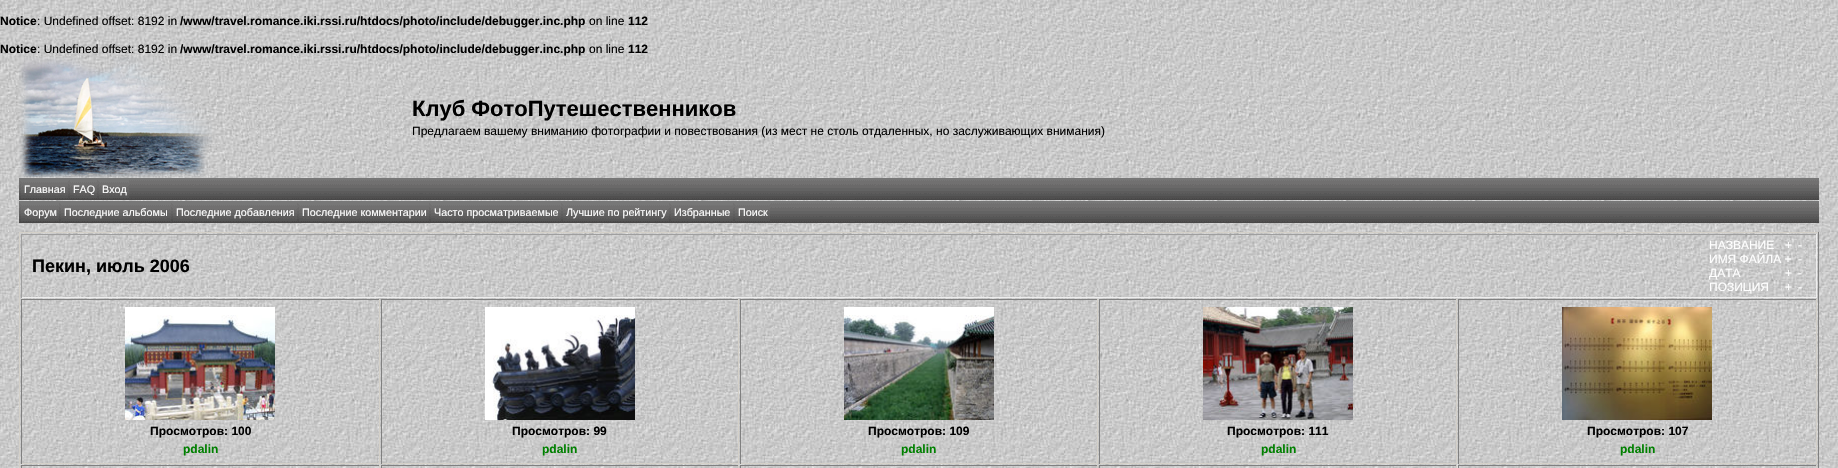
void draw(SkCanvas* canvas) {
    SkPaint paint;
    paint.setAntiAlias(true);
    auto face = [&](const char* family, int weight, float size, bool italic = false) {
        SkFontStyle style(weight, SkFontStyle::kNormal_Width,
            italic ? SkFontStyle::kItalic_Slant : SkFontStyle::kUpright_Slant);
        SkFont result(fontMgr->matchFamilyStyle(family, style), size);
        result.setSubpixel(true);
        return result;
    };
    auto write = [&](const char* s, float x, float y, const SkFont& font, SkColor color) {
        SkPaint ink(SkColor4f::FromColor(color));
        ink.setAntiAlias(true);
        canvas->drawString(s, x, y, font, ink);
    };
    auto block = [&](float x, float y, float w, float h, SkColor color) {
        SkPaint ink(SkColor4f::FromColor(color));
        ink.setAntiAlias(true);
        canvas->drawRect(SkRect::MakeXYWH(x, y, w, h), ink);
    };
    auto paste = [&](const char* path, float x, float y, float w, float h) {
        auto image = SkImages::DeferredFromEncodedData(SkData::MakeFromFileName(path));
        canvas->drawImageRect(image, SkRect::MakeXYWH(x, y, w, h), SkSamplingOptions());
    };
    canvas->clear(SK_ColorWHITE);
    paste("pic1.png", 0, 0, 1838, 468);
    auto kFont1 = face("Liberation Sans", 700, 12);
    write("Notice", 0, 25, kFont1, SK_ColorBLACK);
    auto kFont2 = face("Liberation Sans", 400, 12);
    write(": Undefined offset: 8192 in", 37, 25, kFont2, SK_ColorBLACK);
    write("/www/travel.romance.iki.rssi.ru/htdocs/photo/include/debugger.inc.php", 180, 25, kFont1, SK_ColorBLACK);
    write("on line", 589, 25, kFont2, SK_ColorBLACK);
    write("112", 628, 25, kFont1, SK_ColorBLACK);
    write("Notice", 0, 53, kFont1, SK_ColorBLACK);
    write(": Undefined offset: 8192 in", 37, 53, kFont2, SK_ColorBLACK);
    write("/www/travel.romance.iki.rssi.ru/htdocs/photo/include/debugger.inc.php", 180, 53, kFont1, SK_ColorBLACK);
    write("on line", 589, 53, kFont2, SK_ColorBLACK);
    write("112", 628, 53, kFont1, SK_ColorBLACK);
    paste("pic2.png", 19, 57, 193, 120);
    auto kFont3 = face("Liberation Sans", 700, 22);
    write("Клуб ФотоПутешественников", 412, 116, kFont3, SK_ColorBLACK);
    write("Предлагаем вашему вниманию фотографии и повествования (из мест не столь отдаленных, но заслуживающих внимания)", 412, 135, kFont2, SK_ColorBLACK);
    paste("pic3.png", 19, 178, 1800, 22);
    paste("pic4.png", 21, 180, 47, 18);
    auto kFont4 = face("Liberation Sans", 400, 10.75f);
    write("Главная", 24, 193, kFont4, SK_ColorWHITE);
    paste("pic5.png", 70, 180, 27, 18);
    write("FAQ", 73, 193, kFont4, SK_ColorWHITE);
    paste("pic6.png", 99, 180, 30, 18);
    write("Вход", 102, 193, kFont4, SK_ColorWHITE);
    paste("pic3.png", 19, 201, 1800, 22);
    paste("pic7.png", 21, 203, 38, 18);
    write("Форум", 24, 216, kFont4, SK_ColorWHITE);
    paste("pic8.png", 61, 203, 110, 18);
    write("Последние альбомы", 64, 216, kFont4, SK_ColorWHITE);
    paste("pic9.png", 173, 203, 124, 18);
    write("Последние добавления", 176, 216, kFont4, SK_ColorWHITE);
    paste("pic10.png", 299, 203, 130, 18);
    write("Последние комментарии", 302, 216, kFont4, SK_ColorWHITE);
    paste("pic11.png", 431, 203, 130, 18);
    write("Часто просматриваемые", 434, 216, kFont4, SK_ColorWHITE);
    paste("pic12.png", 563, 203, 106, 18);
    write("Лучшие по рейтингу", 566, 216, kFont4, SK_ColorWHITE);
    paste("pic13.png", 671, 203, 62, 18);
    write("Избранные", 674, 216, kFont4, SK_ColorWHITE);
    paste("pic14.png", 735, 203, 35, 18);
    write("Поиск", 738, 216, kFont4, SK_ColorWHITE);
    block(19, 232, 1800, 1, SkColorSetRGB(212, 208, 200));
    block(1818, 232, 1, 236, SkColorSetRGB(128, 128, 128));
    block(19, 232, 1, 236, SkColorSetRGB(212, 208, 200));
    block(21, 234, 1796, 1, SkColorSetRGB(159, 159, 159));
    block(1816, 234, 1, 64, SkColorSetRGB(238, 238, 238));
    block(21, 297, 1796, 1, SkColorSetRGB(238, 238, 238));
    block(21, 234, 1, 64, SkColorSetRGB(159, 159, 159));
    auto kFont5 = face("Liberation Sans", 700, 18);
    write("Пекин, июль 2006", 32, 272, kFont5, SK_ColorBLACK);
    write("НАЗВАНИЕ", 1709, 249, kFont2, SK_ColorWHITE);
    write("+", 1785, 249, kFont2, SK_ColorWHITE);
    write("-", 1798, 249, kFont2, SK_ColorWHITE);
    write("ИМЯ ФАЙЛА +", 1709, 263, kFont2, SK_ColorWHITE);
    write("-", 1798, 263, kFont2, SK_ColorWHITE);
    write("ДАТА", 1709, 277, kFont2, SK_ColorWHITE);
    write("+", 1785, 277, kFont2, SK_ColorWHITE);
    write("-", 1798, 277, kFont2, SK_ColorWHITE);
    write("ПОЗИЦИЯ", 1709, 291, kFont2, SK_ColorWHITE);
    write("+", 1785, 291, kFont2, SK_ColorWHITE);
    write("-", 1798, 291, kFont2, SK_ColorWHITE);
    block(21, 299, 359, 1, SkColorSetRGB(128, 128, 128));
    block(379, 299, 1, 165, SkColorSetRGB(212, 208, 200));
    block(21, 463, 359, 1, SkColorSetRGB(212, 208, 200));
    block(21, 299, 1, 165, SkColorSetRGB(128, 128, 128));
    paste("pic15.png", 125, 307, 150, 113);
    write("Просмотров: 100", 150, 435, kFont1, SK_ColorBLACK);
    write("pdalin", 183, 453, kFont1, SkColorSetRGB(0, 128, 0));
    block(381, 299, 358, 1, SkColorSetRGB(128, 128, 128));
    block(738, 299, 1, 165, SkColorSetRGB(212, 208, 200));
    block(381, 463, 358, 1, SkColorSetRGB(212, 208, 200));
    block(381, 299, 1, 165, SkColorSetRGB(128, 128, 128));
    paste("pic16.png", 485, 307, 150, 113);
    write("Просмотров: 99", 512, 435, kFont1, SK_ColorBLACK);
    write("pdalin", 542, 453, kFont1, SkColorSetRGB(0, 128, 0));
    block(740, 299, 358, 1, SkColorSetRGB(128, 128, 128));
    block(1097, 299, 1, 165, SkColorSetRGB(212, 208, 200));
    block(740, 463, 358, 1, SkColorSetRGB(212, 208, 200));
    block(740, 299, 1, 165, SkColorSetRGB(128, 128, 128));
    paste("pic17.png", 844, 307, 150, 113);
    write("Просмотров: 109", 868, 435, kFont1, SK_ColorBLACK);
    write("pdalin", 901, 453, kFont1, SkColorSetRGB(0, 128, 0));
    block(1099, 299, 358, 1, SkColorSetRGB(128, 128, 128));
    block(1456, 299, 1, 165, SkColorSetRGB(212, 208, 200));
    block(1099, 463, 358, 1, SkColorSetRGB(212, 208, 200));
    block(1099, 299, 1, 165, SkColorSetRGB(128, 128, 128));
    paste("pic18.png", 1203, 307, 150, 113);
    write("Просмотров: 111", 1227, 435, kFont1, SK_ColorBLACK);
    write("pdalin", 1261, 453, kFont1, SkColorSetRGB(0, 128, 0));
    block(1458, 299, 359, 1, SkColorSetRGB(128, 128, 128));
    block(1816, 299, 1, 165, SkColorSetRGB(212, 208, 200));
    block(1458, 463, 359, 1, SkColorSetRGB(212, 208, 200));
    block(1458, 299, 1, 165, SkColorSetRGB(128, 128, 128));
    paste("pic19.png", 1562, 307, 150, 113);
    write("Просмотров: 107", 1587, 435, kFont1, SK_ColorBLACK);
    write("pdalin", 1620, 453, kFont1, SkColorSetRGB(0, 128, 0));
    block(21, 465, 359, 1, SkColorSetRGB(128, 128, 128));
    block(379, 465, 1, 3, SkColorSetRGB(212, 208, 200));
    block(21, 465, 1, 3, SkColorSetRGB(128, 128, 128));
    block(381, 465, 358, 1, SkColorSetRGB(128, 128, 128));
    block(738, 465, 1, 3, SkColorSetRGB(212, 208, 200));
    block(381, 465, 1, 3, SkColorSetRGB(128, 128, 128));
    block(740, 465, 358, 1, SkColorSetRGB(128, 128, 128));
    block(1097, 465, 1, 3, SkColorSetRGB(212, 208, 200));
    block(740, 465, 1, 3, SkColorSetRGB(128, 128, 128));
    block(1099, 465, 358, 1, SkColorSetRGB(128, 128, 128));
    block(1456, 465, 1, 3, SkColorSetRGB(212, 208, 200));
    block(1099, 465, 1, 3, SkColorSetRGB(128, 128, 128));
    block(1458, 465, 359, 1, SkColorSetRGB(128, 128, 128));
    block(1816, 465, 1, 3, SkColorSetRGB(212, 208, 200));
    block(1458, 465, 1, 3, SkColorSetRGB(128, 128, 128));
}
